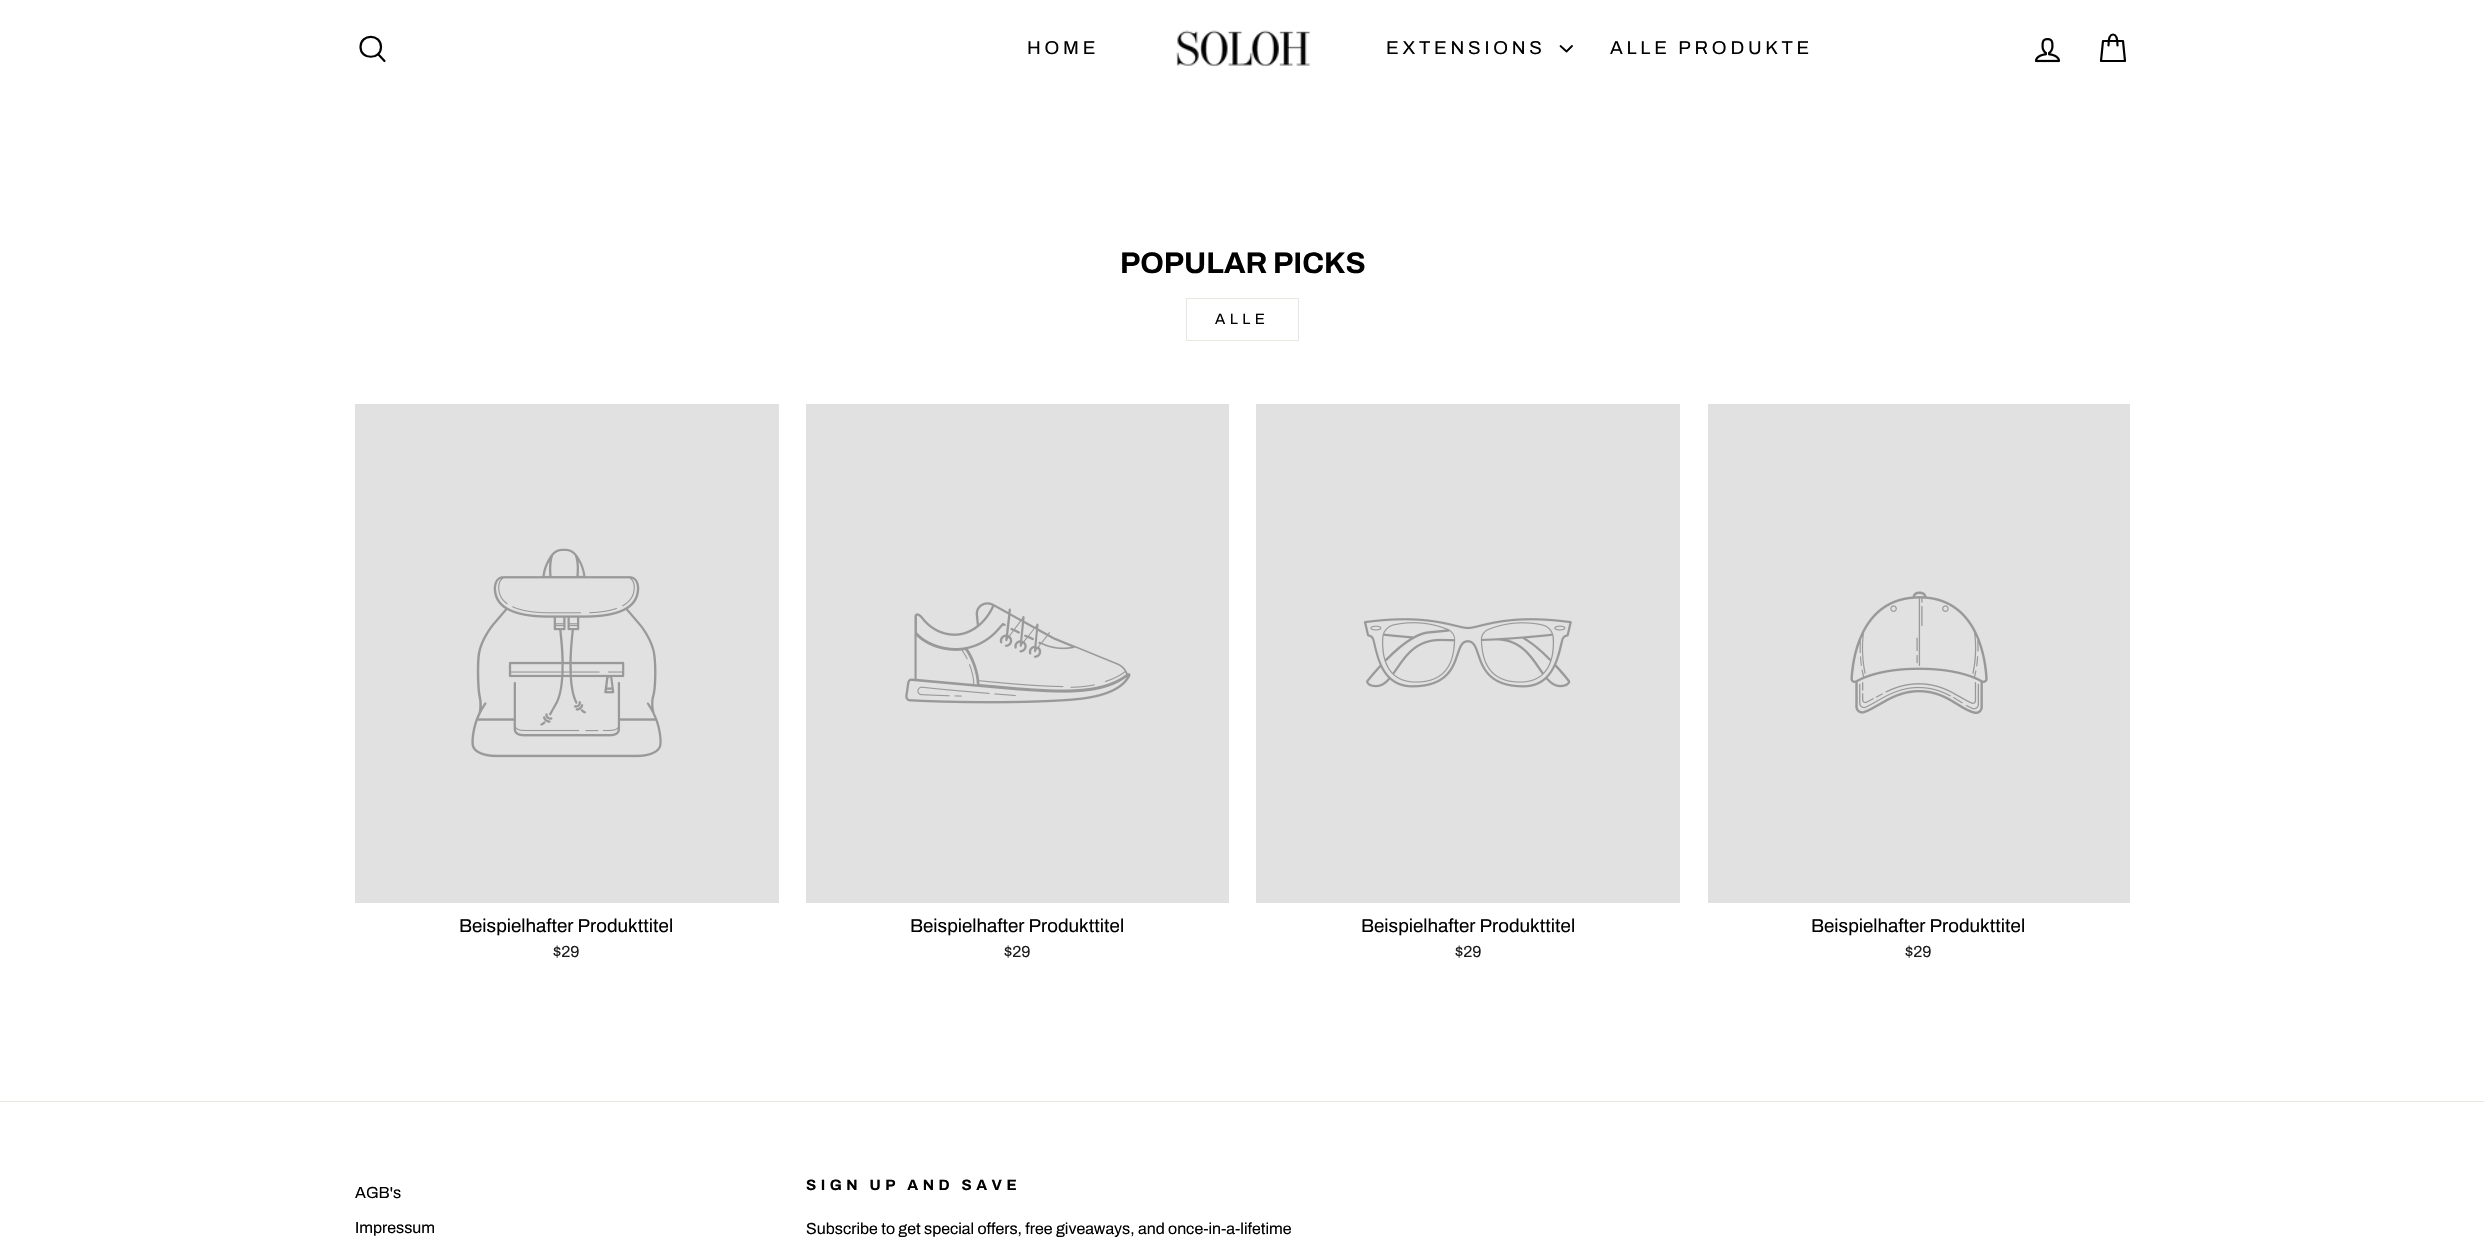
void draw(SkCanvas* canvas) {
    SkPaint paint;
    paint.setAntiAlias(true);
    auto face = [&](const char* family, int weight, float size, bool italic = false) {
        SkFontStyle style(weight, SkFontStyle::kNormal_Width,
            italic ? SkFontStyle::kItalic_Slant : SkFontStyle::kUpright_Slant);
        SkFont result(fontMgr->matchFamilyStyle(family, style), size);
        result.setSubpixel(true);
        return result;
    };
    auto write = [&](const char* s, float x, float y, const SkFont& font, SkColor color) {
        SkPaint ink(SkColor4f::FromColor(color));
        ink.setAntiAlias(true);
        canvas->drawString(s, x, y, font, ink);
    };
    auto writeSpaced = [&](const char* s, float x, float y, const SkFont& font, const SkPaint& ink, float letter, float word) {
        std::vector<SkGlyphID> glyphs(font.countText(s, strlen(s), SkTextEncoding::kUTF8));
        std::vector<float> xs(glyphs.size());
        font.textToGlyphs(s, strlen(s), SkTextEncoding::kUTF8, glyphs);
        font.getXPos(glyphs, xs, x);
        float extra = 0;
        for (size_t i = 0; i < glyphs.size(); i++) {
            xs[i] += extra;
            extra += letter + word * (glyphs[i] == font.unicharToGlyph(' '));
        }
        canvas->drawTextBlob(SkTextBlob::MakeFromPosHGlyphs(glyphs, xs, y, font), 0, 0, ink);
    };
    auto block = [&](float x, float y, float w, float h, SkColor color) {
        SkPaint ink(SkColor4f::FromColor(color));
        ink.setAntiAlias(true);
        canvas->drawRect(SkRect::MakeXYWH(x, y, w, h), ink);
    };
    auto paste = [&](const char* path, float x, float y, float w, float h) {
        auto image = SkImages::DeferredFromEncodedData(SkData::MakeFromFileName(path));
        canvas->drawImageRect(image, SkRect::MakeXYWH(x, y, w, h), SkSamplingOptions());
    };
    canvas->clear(SK_ColorWHITE);
    paint.setStyle(SkPaint::kStroke_Style);
    paint.setStrokeWidth(2.2f);
    paint.setStrokeCap(SkPaint::kRound_Cap);
    paint.setStrokeJoin(SkPaint::kRound_Join);
    paint.setColor(SK_ColorBLACK);
    canvas->drawPath(SkPathBuilder().moveTo(381, 47).cubicTo(381, 60, 360.5f, 60, 360.5f, 47).cubicTo(360.5f, 33.5f, 381, 33.5f, 381, 47).close().moveTo(384.5f, 61).lineTo(378, 54).detach(), paint);
    auto kFont1 = face("Archivo", 400, 18.75f);
    paint.setStyle(SkPaint::kFill_Style);
    writeSpaced("HOME", 1027, 54, kFont1, paint, 3.75f, 0);
    paste("pic1.png", 1176, 30, 135, 37);
    writeSpaced("EXTENSIONS", 1386, 54, kFont1, paint, 3.75f, 0);
    paint.setStyle(SkPaint::kStroke_Style);
    paint.setStrokeWidth(1.8f);
    canvas->drawPath(SkPathBuilder().moveTo(1560.5f, 46).lineTo(1566.5f, 51.5f).lineTo(1572, 46).detach(), paint);
    paint.setStyle(SkPaint::kFill_Style);
    writeSpaced("ALLE PRODUKTE", 1610, 54, kFont1, paint, 3.75f, 0);
    paste("pic2.png", 2034, 38, 27, 25);
    paint.setStyle(SkPaint::kStroke_Style);
    paint.setStrokeWidth(2.2f);
    canvas->drawPath(SkPathBuilder().moveTo(2108.5f, 45.5f).cubicTo(2108.5f, 37, 2110.5f, 34.5f, 2113, 34.5f).cubicTo(2115.5f, 34.5f, 2117.5f, 37, 2117.5f, 45.5f).moveTo(2103, 41).lineTo(2123, 41).lineTo(2125, 61).lineTo(2101, 61).close().detach(), paint);
    auto kFont2 = face("Archivo", 700, 29.75f);
    write("POPULAR PICKS", 1120, 273, kFont2, SK_ColorBLACK);
    paint.setStrokeWidth(1);
    paint.setStrokeCap(SkPaint::kButt_Cap);
    paint.setStrokeJoin(SkPaint::kMiter_Join);
    paint.setColor(SkColorSetRGB(232, 232, 225));
    canvas->drawRect(SkRect::MakeXYWH(1186.5f, 298.5f, 112, 42), paint);
    auto kFont3 = face("Archivo", 400, 15);
    paint.setStyle(SkPaint::kFill_Style);
    paint.setColor(SK_ColorBLACK);
    writeSpaced("ALLE", 1215, 324, kFont3, paint, 4.5f, 0);
    block(355, 404, 424, 499, SkColorSetRGB(225, 225, 225));
    paste("pic3.png", 471, 548, 191, 210);
    write("Beispielhafter Produkttitel", 459, 932, kFont1, SK_ColorBLACK);
    auto kFont4 = face("Archivo", 400, 15.95f);
    write("$29", 553, 957, kFont4, SkColorSetRGB(28, 29, 29));
    block(806, 404, 423, 499, SkColorSetRGB(225, 225, 225));
    paste("pic4.png", 905, 602, 226, 102);
    write("Beispielhafter Produkttitel", 910, 932, kFont1, SK_ColorBLACK);
    write("$29", 1004, 957, kFont4, SkColorSetRGB(28, 29, 29));
    block(1256, 404, 424, 499, SkColorSetRGB(225, 225, 225));
    paste("pic5.png", 1363, 618, 209, 70);
    write("Beispielhafter Produkttitel", 1361, 932, kFont1, SK_ColorBLACK);
    write("$29", 1455, 957, kFont4, SkColorSetRGB(28, 29, 29));
    block(1708, 404, 422, 499, SkColorSetRGB(225, 225, 225));
    paste("pic6.png", 1850, 591, 138, 123);
    write("Beispielhafter Produkttitel", 1811, 932, kFont1, SK_ColorBLACK);
    write("$29", 1905, 957, kFont4, SkColorSetRGB(28, 29, 29));
    block(0, 1101, 2484, 1, SkColorSetRGB(232, 232, 225));
    write("AGB's", 355, 1198, kFont4, SK_ColorBLACK);
    write("Impressum", 355, 1233, kFont4, SK_ColorBLACK);
    auto kFont5 = face("Archivo", 700, 15);
    writeSpaced("SIGN UP AND SAVE", 806, 1190, kFont5, paint, 4.5f, 0);
    write("Subscribe to get special offers, free giveaways, and once-in-a-lifetime", 806, 1234, kFont4, SK_ColorBLACK);
}
